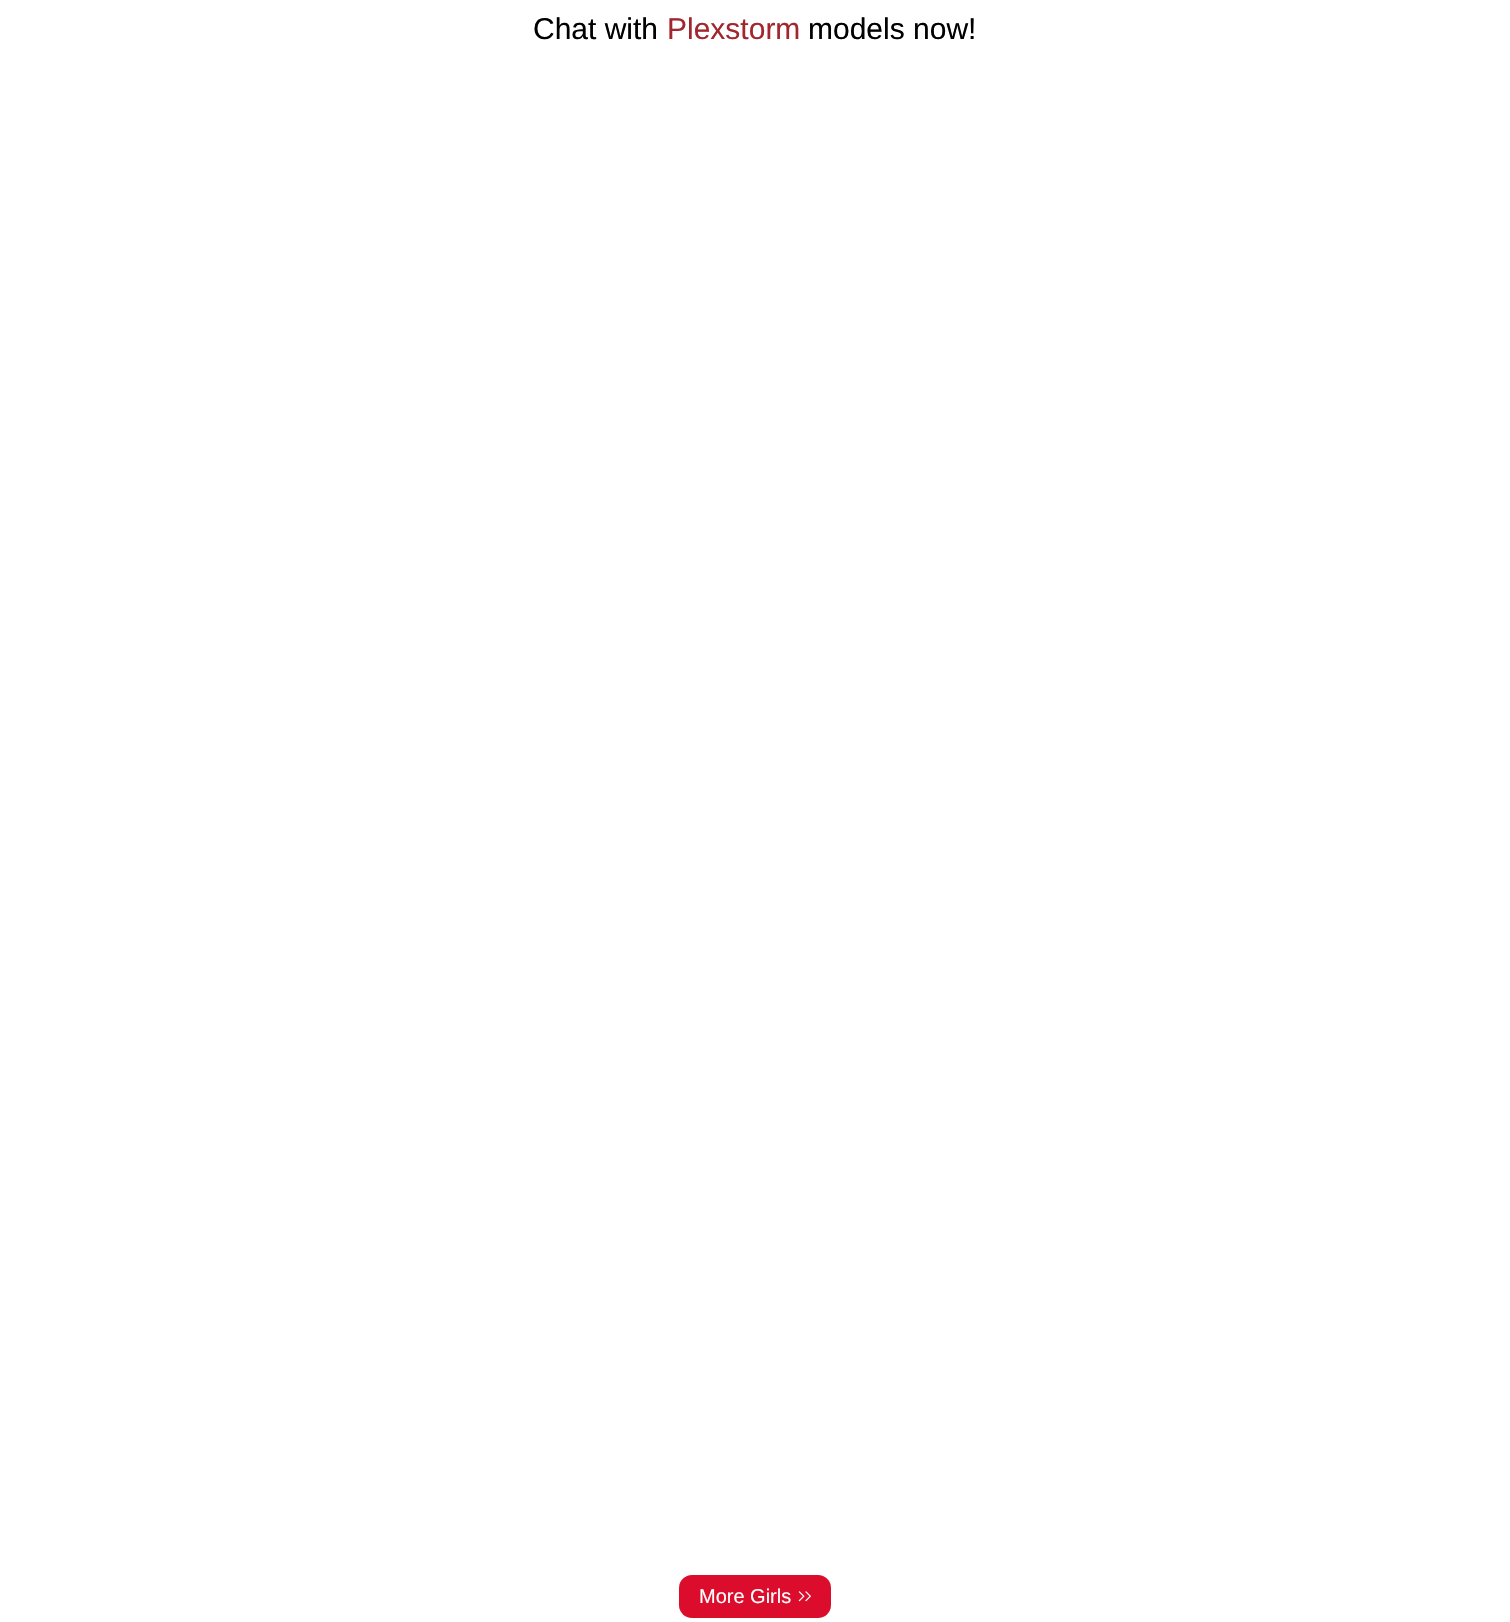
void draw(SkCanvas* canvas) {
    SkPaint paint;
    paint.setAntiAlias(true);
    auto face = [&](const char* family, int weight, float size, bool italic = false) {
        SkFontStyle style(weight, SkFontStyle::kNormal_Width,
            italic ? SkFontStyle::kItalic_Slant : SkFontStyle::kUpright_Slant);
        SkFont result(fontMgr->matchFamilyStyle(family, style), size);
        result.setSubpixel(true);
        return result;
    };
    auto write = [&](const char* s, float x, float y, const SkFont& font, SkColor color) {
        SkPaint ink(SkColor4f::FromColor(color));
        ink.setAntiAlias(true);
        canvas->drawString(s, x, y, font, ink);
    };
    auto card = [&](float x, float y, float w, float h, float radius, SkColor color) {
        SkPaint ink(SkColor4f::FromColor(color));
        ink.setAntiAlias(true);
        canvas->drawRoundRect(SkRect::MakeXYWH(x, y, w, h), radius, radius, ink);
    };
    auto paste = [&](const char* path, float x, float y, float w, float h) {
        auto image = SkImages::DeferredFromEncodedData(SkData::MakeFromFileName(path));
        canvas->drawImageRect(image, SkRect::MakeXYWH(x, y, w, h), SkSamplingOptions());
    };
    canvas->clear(SK_ColorWHITE);
    auto kFont1 = face("Liberation Sans", 400, 30);
    write("Chat with", 533, 39, kFont1, SK_ColorBLACK);
    write("Plexstorm", 667, 39, kFont1, SkColorSetRGB(162, 38, 46));
    write("models now!", 808, 39, kFont1, SK_ColorBLACK);
    card(679, 1575, 152, 43, 13, SkColorSetRGB(220, 12, 44));
    auto kFont2 = face("Liberation Sans", 400, 20);
    write("More Girls", 699, 1603, kFont2, SK_ColorWHITE);
    paste("pic1.png", 798, 1591, 13, 11);
}
